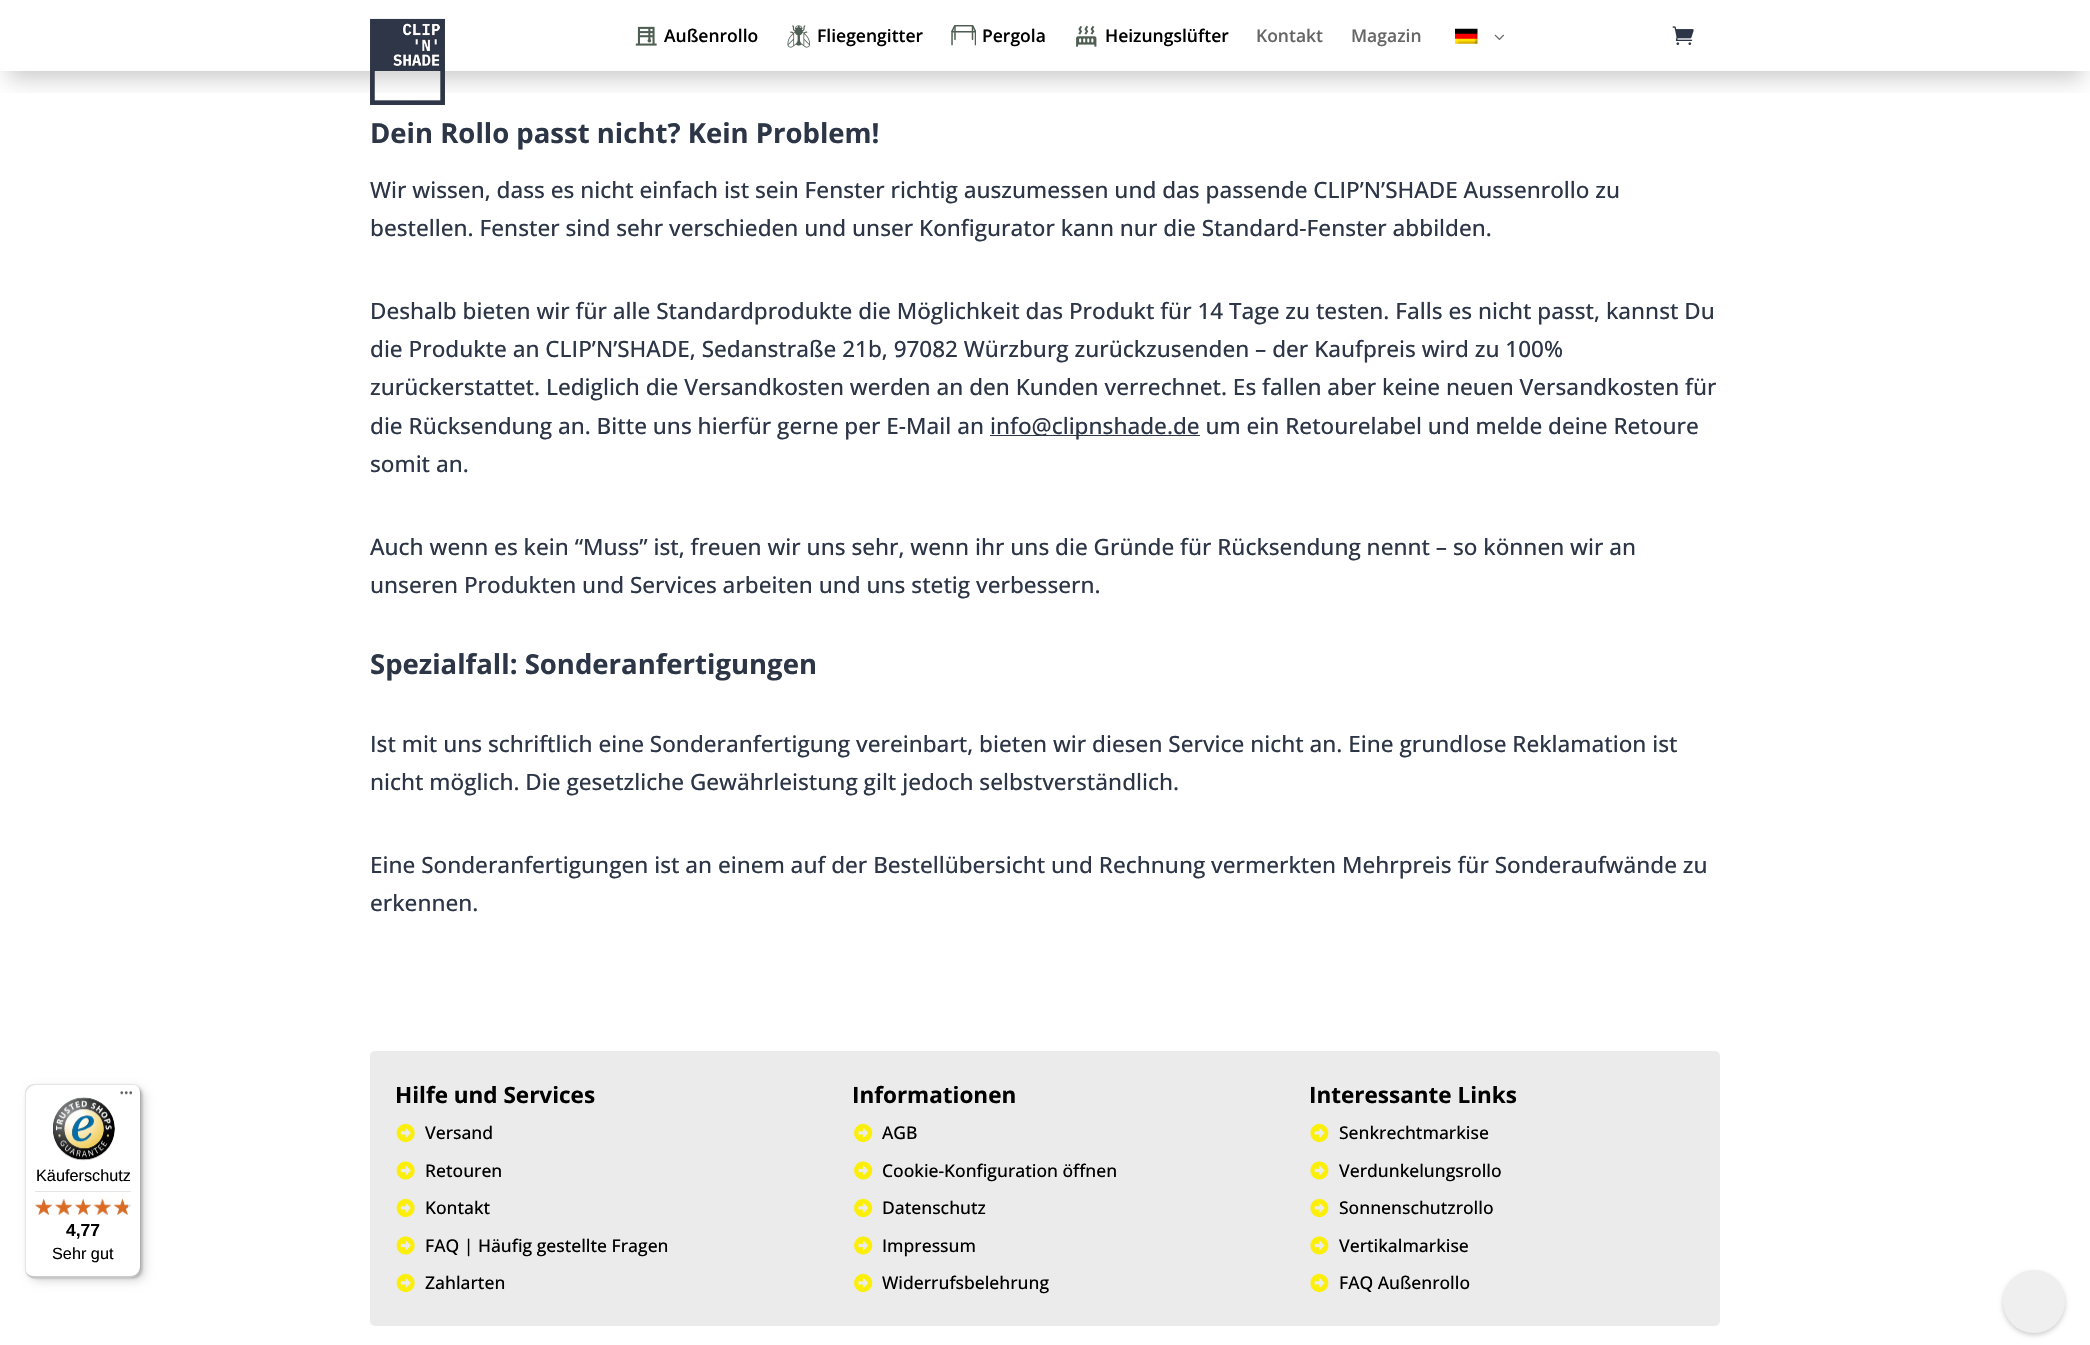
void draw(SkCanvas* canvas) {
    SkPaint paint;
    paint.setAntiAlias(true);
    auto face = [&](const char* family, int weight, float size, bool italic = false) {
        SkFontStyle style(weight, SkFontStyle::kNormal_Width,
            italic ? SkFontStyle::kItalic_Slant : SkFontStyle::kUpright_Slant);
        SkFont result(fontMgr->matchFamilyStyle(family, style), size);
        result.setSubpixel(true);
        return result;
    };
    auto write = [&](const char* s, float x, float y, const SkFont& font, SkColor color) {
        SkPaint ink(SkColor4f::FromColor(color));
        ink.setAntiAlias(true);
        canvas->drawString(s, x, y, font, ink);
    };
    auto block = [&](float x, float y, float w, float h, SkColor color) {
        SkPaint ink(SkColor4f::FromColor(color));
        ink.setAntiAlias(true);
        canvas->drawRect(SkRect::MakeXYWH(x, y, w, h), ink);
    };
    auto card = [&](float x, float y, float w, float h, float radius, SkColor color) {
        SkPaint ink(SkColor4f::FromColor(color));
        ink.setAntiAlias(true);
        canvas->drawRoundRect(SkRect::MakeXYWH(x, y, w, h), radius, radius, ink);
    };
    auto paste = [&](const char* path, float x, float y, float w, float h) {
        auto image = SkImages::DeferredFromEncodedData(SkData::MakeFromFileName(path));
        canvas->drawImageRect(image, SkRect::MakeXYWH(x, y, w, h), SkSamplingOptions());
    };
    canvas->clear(SK_ColorWHITE);
    paint.setColor(SkColorSetARGB(38, 0, 0, 0));
    paint.setMaskFilter(SkMaskFilter::MakeBlur(kNormal_SkBlurStyle, 5));
    canvas->drawRoundRect(SkRect::MakeXYWH(29, 1088, 116, 193), 10, 10, paint);
    paint.setMaskFilter(nullptr);
    paint.setMaskFilter(SkMaskFilter::MakeBlur(kNormal_SkBlurStyle, 1));
    canvas->drawRoundRect(SkRect::MakeXYWH(26, 1085, 117, 194), 10, 10, paint);
    paint.setMaskFilter(nullptr);
    card(25, 1084, 116, 194, 10, SK_ColorWHITE);
    paint.setColor(SkColorSetARGB(26, 0, 0, 0));
    canvas->drawPath(SkPathBuilder().moveTo(36, 1085).lineTo(132, 1085).cubicTo(134, 1085, 136, 1085, 137, 1086).cubicTo(136, 1085, 133, 1084, 131, 1084).lineTo(35, 1084).cubicTo(29, 1084, 25, 1088, 25, 1094).lineTo(25, 1268).cubicTo(25, 1272, 27, 1275, 30, 1277).cubicTo(28, 1275, 26, 1272, 26, 1269).lineTo(26, 1095).cubicTo(26, 1089, 31, 1085, 36, 1085).close().detach(), paint);
    paint.setColor(SkColorSetARGB(51, 0, 0, 0));
    canvas->drawPath(SkPathBuilder().moveTo(26, 1272).cubicTo(28, 1276, 31, 1278, 35, 1278).lineTo(131, 1278).cubicTo(137, 1278, 141, 1274, 141, 1268).lineTo(141, 1094).cubicTo(141, 1092, 140, 1090, 139, 1088).lineTo(140, 1092).lineTo(140, 1266).cubicTo(140, 1272, 136, 1276, 130, 1276).lineTo(34, 1276).cubicTo(31, 1276, 28, 1275, 26, 1272).close().detach(), paint);
    paint.setColor(SkColorSetARGB(51, 50, 50, 50));
    canvas->drawPath(SkPathBuilder().moveTo(26, 1273).cubicTo(28, 1276, 31, 1278, 35, 1278).lineTo(131, 1278).cubicTo(137, 1278, 141, 1274, 141, 1268).lineTo(141, 1094).cubicTo(141, 1092, 140, 1089, 139, 1088).cubicTo(140, 1089, 140, 1091, 140, 1093).lineTo(140, 1267).cubicTo(140, 1272, 136, 1277, 130, 1277).lineTo(34, 1277).cubicTo(31, 1277, 28, 1275, 26, 1273).close().detach(), paint);
    paste("pic1.png", 120, 1091, 13, 4);
    paint.setColor(SkColorSetARGB(77, 255, 255, 255));
    canvas->drawPath(SkPathBuilder().moveTo(26, 1273).cubicTo(28, 1276, 31, 1278, 35, 1278).lineTo(131, 1278).cubicTo(137, 1278, 141, 1274, 141, 1268).lineTo(141, 1267).cubicTo(141, 1272, 136, 1277, 131, 1277).lineTo(34, 1277).cubicTo(31, 1277, 28, 1275, 26, 1273).close().detach(), paint);
    paste("pic2.png", 53, 1097, 62, 64);
    auto kFont1 = face("Liberation Sans", 400, 16.25f);
    write("Käuferschutz", 36, 1181, kFont1, SK_ColorBLACK);
    block(35, 1191, 96, 1, SkColorSetRGB(229, 229, 229));
    paste("pic8.png", 35, 1199, 17, 16);
    paste("pic3.png", 35, 1198, 17, 17);
    paste("pic9.png", 55, 1199, 17, 16);
    paste("pic4.png", 55, 1198, 18, 17);
    paste("pic10.png", 75, 1199, 16, 16);
    paste("pic5.png", 75, 1198, 16, 17);
    paste("pic11.png", 93, 1199, 18, 16);
    paste("pic6.png", 93, 1198, 18, 17);
    paste("pic12.png", 114, 1199, 17, 16);
    paste("pic7.png", 114, 1198, 14, 17);
    auto kFont2 = face("Liberation Sans", 700, 17.5f);
    write("4,77", 66, 1236, kFont2, SK_ColorBLACK);
    write("Sehr gut", 52, 1259, kFont1, SK_ColorBLACK);
    canvas->save();
    canvas->clipRect(SkRect::MakeXYWH(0, 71, 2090, 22));
    paint.setColor(SkColorSetARGB(51, 0, 0, 0));
    paint.setMaskFilter(SkMaskFilter::MakeBlur(kNormal_SkBlurStyle, 11));
    canvas->drawRect(SkRect::MakeXYWH(8, 23, 2075, 56), paint);
    paint.setMaskFilter(nullptr);
    canvas->restore();
    paste("pic13.png", 370, 18, 75, 87);
    paste("pic14.png", 635, 26, 22, 20);
    auto kFont3 = face("Open Sans", 600, 17.5f);
    write("Außenrollo", 664, 42, kFont3, SK_ColorBLACK);
    paste("pic15.png", 787, 25, 24, 23);
    write("Fliegengitter", 817, 42, kFont3, SK_ColorBLACK);
    paste("pic16.png", 951, 25, 25, 21);
    write("Pergola", 982, 42, kFont3, SK_ColorBLACK);
    paste("pic17.png", 1076, 25, 21, 22);
    write("Heizungslüfter", 1105, 42, kFont3, SK_ColorBLACK);
    write("Kontakt", 1256, 42, kFont3, SkColorSetRGB(102, 102, 102));
    write("Magazin", 1351, 42, kFont3, SkColorSetRGB(102, 102, 102));
    paste("pic18.png", 1455, 28, 23, 16);
    paste("pic19.png", 1494, 34, 10, 6);
    paste("pic20.png", 1672, 26, 22, 19);
    auto kFont4 = face("Open Sans", 700, 27.5f);
    write("Dein Rollo passt nicht? Kein Problem!", 370, 143, kFont4, SkColorSetRGB(45, 54, 71));
    auto kFont5 = face("Open Sans", 500, 22.5f);
    write("Wir wissen, dass es nicht einfach ist sein Fenster richtig auszumessen und das passende CLIP’N’SHADE Aussenrollo zu", 370, 198, kFont5, SkColorSetRGB(45, 54, 71));
    write("bestellen. Fenster sind sehr verschieden und unser Konfigurator kann nur die Standard-Fenster abbilden.", 370, 236, kFont5, SkColorSetRGB(45, 54, 71));
    write("Deshalb bieten wir für alle Standardprodukte die Möglichkeit das Produkt für 14 Tage zu testen. Falls es nicht passt, kannst Du", 370, 319, kFont5, SkColorSetRGB(45, 54, 71));
    write("die Produkte an CLIP’N’SHADE, Sedanstraße 21b, 97082 Würzburg zurückzusenden – der Kaufpreis wird zu 100%", 370, 357, kFont5, SkColorSetRGB(45, 54, 71));
    write("zurückerstattet. Lediglich die Versandkosten werden an den Kunden verrechnet. Es fallen aber keine neuen Versandkosten für", 370, 395, kFont5, SkColorSetRGB(45, 54, 71));
    write("die Rücksendung an. Bitte uns hierfür gerne per E-Mail an", 370, 434, kFont5, SkColorSetRGB(45, 54, 71));
    block(990, 435, 210, 1, SkColorSetRGB(45, 54, 71));
    write("info@clipnshade.de um ein Retourelabel und melde deine Retoure", 990, 434, kFont5, SkColorSetRGB(45, 54, 71));
    write("somit an.", 370, 472, kFont5, SkColorSetRGB(45, 54, 71));
    write("Auch wenn es kein “Muss” ist, freuen wir uns sehr, wenn ihr uns die Gründe für Rücksendung nennt – so können wir an", 370, 555, kFont5, SkColorSetRGB(45, 54, 71));
    write("unseren Produkten und Services arbeiten und uns stetig verbessern.", 370, 593, kFont5, SkColorSetRGB(45, 54, 71));
    write("Spezialfall: Sonderanfertigungen", 370, 674, kFont4, SkColorSetRGB(45, 54, 71));
    write("Ist mit uns schriftlich eine Sonderanfertigung vereinbart, bieten wir diesen Service nicht an. Eine grundlose Reklamation ist", 370, 752, kFont5, SkColorSetRGB(45, 54, 71));
    write("nicht möglich. Die gesetzliche Gewährleistung gilt jedoch selbstverständlich.", 370, 790, kFont5, SkColorSetRGB(45, 54, 71));
    write("Eine Sonderanfertigungen ist an einem auf der Bestellübersicht und Rechnung vermerkten Mehrpreis für Sonderaufwände zu", 370, 873, kFont5, SkColorSetRGB(45, 54, 71));
    write("erkennen.", 370, 911, kFont5, SkColorSetRGB(45, 54, 71));
    card(370, 1051, 1350, 275, 5, SkColorSetRGB(235, 235, 235));
    auto kFont6 = face("Open Sans", 700, 22.5f);
    write("Hilfe und Services", 395, 1103, kFont6, SK_ColorBLACK);
    paste("pic21.png", 396, 1123, 19, 20);
    auto kFont7 = face("Open Sans", 500, 17.5f);
    write("Versand", 425, 1139, kFont7, SK_ColorBLACK);
    paste("pic22.png", 396, 1161, 19, 19);
    write("Retouren", 425, 1177, kFont7, SK_ColorBLACK);
    paste("pic21.png", 396, 1198, 19, 20);
    write("Kontakt", 425, 1214, kFont7, SK_ColorBLACK);
    paste("pic23.png", 396, 1236, 19, 19);
    write("FAQ | Häufig gestellte Fragen", 425, 1252, kFont7, SK_ColorBLACK);
    paste("pic21.png", 396, 1273, 19, 20);
    write("Zahlarten", 425, 1289, kFont7, SK_ColorBLACK);
    write("Informationen", 852, 1103, kFont6, SK_ColorBLACK);
    paste("pic24.png", 853, 1123, 20, 20);
    write("AGB", 882, 1139, kFont7, SK_ColorBLACK);
    paste("pic25.png", 853, 1161, 20, 19);
    write("Cookie-Konfiguration öffnen", 882, 1177, kFont7, SK_ColorBLACK);
    paste("pic24.png", 853, 1198, 20, 20);
    write("Datenschutz", 882, 1214, kFont7, SK_ColorBLACK);
    paste("pic26.png", 853, 1236, 20, 19);
    write("Impressum", 882, 1252, kFont7, SK_ColorBLACK);
    paste("pic24.png", 853, 1273, 20, 20);
    write("Widerrufsbelehrung", 882, 1289, kFont7, SK_ColorBLACK);
    write("Interessante Links", 1309, 1103, kFont6, SK_ColorBLACK);
    paste("pic27.png", 1310, 1123, 19, 20);
    write("Senkrechtmarkise", 1339, 1139, kFont7, SK_ColorBLACK);
    paste("pic28.png", 1310, 1161, 19, 19);
    write("Verdunkelungsrollo", 1339, 1177, kFont7, SK_ColorBLACK);
    paste("pic27.png", 1310, 1198, 19, 20);
    write("Sonnenschutzrollo", 1339, 1214, kFont7, SK_ColorBLACK);
    paste("pic29.png", 1310, 1236, 19, 19);
    write("Vertikalmarkise", 1339, 1252, kFont7, SK_ColorBLACK);
    paste("pic27.png", 1310, 1273, 19, 20);
    write("FAQ Außenrollo", 1339, 1289, kFont7, SK_ColorBLACK);
    paint.setMaskFilter(SkMaskFilter::MakeBlur(kNormal_SkBlurStyle, 2.5f));
    canvas->drawRoundRect(SkRect::MakeXYWH(2003, 1273, 62, 62), 31, 31, paint);
    paint.setMaskFilter(nullptr);
    card(2003, 1270, 62, 63, 31, SkColorSetRGB(239, 239, 239));
}
